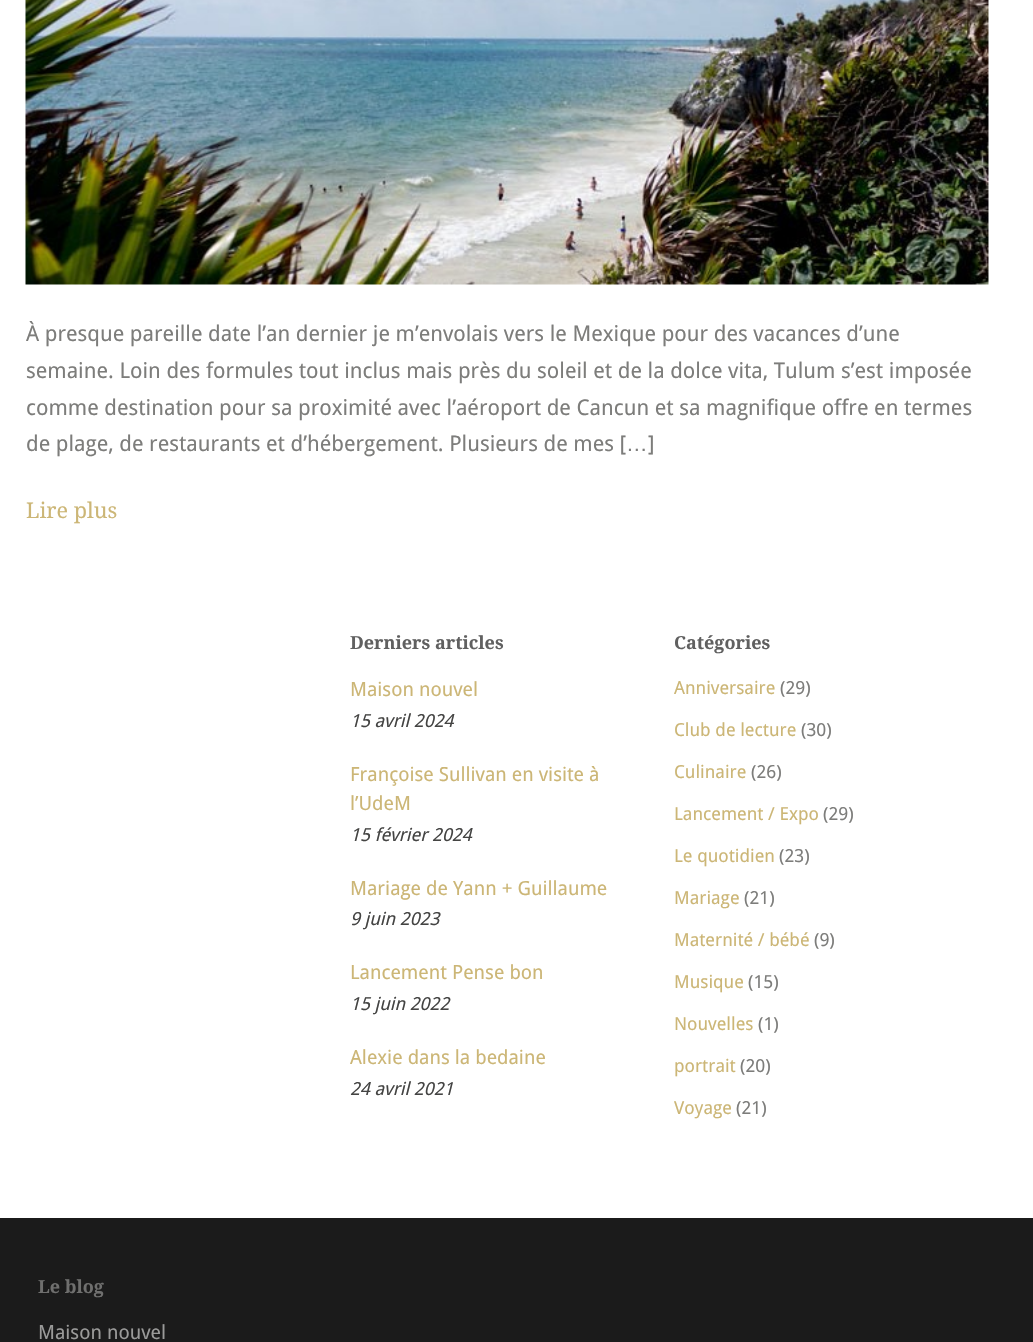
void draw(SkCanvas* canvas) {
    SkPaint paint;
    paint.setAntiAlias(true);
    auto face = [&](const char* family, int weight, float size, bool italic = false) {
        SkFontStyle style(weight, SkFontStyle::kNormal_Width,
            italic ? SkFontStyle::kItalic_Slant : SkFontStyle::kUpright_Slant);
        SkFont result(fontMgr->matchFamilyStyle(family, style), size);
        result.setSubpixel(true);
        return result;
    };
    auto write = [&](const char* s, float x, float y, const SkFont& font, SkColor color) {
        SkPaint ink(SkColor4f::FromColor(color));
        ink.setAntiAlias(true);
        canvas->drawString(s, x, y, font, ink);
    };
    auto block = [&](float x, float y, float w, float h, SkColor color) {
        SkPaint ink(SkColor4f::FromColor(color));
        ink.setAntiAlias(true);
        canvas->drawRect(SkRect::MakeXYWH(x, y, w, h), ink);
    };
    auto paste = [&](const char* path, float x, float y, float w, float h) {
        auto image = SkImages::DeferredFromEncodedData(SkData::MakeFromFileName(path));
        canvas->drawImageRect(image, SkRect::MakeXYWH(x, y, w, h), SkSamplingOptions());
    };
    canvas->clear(SkColorSetRGB(27, 27, 27));
    block(0, 0, 1033, 1218, SK_ColorWHITE);
    paste("pic1.png", 25, 0, 964, 285);
    auto kFont1 = face("Droid Sans", 400, 21.6f);
    write("À presque pareille date l’an dernier je m’envolais vers le Mexique pour des vacances d’une", 26, 341, kFont1, SkColorSetRGB(125, 125, 123));
    write("semaine. Loin des formules tout inclus mais près du soleil et de la dolce vita, Tulum s’est imposée", 26, 378, kFont1, SkColorSetRGB(125, 125, 123));
    write("comme destination pour sa proximité avec l’aéroport de Cancun et sa magnifique offre en termes", 26, 415, kFont1, SkColorSetRGB(125, 125, 123));
    write("de plage, de restaurants et d’hébergement. Plusieurs de mes [", 26, 451, kFont1, SkColorSetRGB(125, 125, 123));
    auto kFont2 = face("Liberation Sans", 400, 21.6f);
    write("…", 626, 451, kFont2, SkColorSetRGB(125, 125, 123));
    write("]", 648, 451, kFont1, SkColorSetRGB(125, 125, 123));
    auto kFont3 = face("Droid Serif", 400, 21.6f);
    write("Lire plus", 26, 518, kFont3, SkColorSetRGB(204, 182, 118));
    auto kFont4 = face("Droid Serif", 700, 18);
    write("Derniers articles", 350, 649, kFont4, SkColorSetRGB(96, 96, 96));
    auto kFont5 = face("Droid Sans", 400, 19.5f);
    write("Maison nouvel", 350, 696, kFont5, SkColorSetRGB(204, 182, 118));
    auto kFont6 = face("Droid Sans", 400, 18, true);
    write("15 avril 2024", 350, 727, kFont6, SkColorSetRGB(68, 68, 67));
    write("Françoise Sullivan en visite à", 350, 781, kFont5, SkColorSetRGB(204, 182, 118));
    write("l’UdeM", 350, 810, kFont5, SkColorSetRGB(204, 182, 118));
    write("15 février 2024", 350, 841, kFont6, SkColorSetRGB(68, 68, 67));
    write("Mariage de Yann + Guillaume", 350, 895, kFont5, SkColorSetRGB(204, 182, 118));
    write("9 juin 2023", 350, 925, kFont6, SkColorSetRGB(68, 68, 67));
    write("Lancement Pense bon", 350, 979, kFont5, SkColorSetRGB(204, 182, 118));
    write("15 juin 2022", 350, 1010, kFont6, SkColorSetRGB(68, 68, 67));
    write("Alexie dans la bedaine", 350, 1064, kFont5, SkColorSetRGB(204, 182, 118));
    write("24 avril 2021", 350, 1095, kFont6, SkColorSetRGB(68, 68, 67));
    write("Catégories", 674, 649, kFont4, SkColorSetRGB(96, 96, 96));
    auto kFont7 = face("Droid Sans", 400, 18);
    write("Anniversaire", 674, 694, kFont7, SkColorSetRGB(204, 182, 118));
    write("(29)", 780, 694, kFont7, SkColorSetRGB(125, 125, 123));
    write("Club de lecture", 674, 736, kFont7, SkColorSetRGB(204, 182, 118));
    write("(30)", 801, 736, kFont7, SkColorSetRGB(125, 125, 123));
    write("Culinaire", 674, 778, kFont7, SkColorSetRGB(204, 182, 118));
    write("(26)", 751, 778, kFont7, SkColorSetRGB(125, 125, 123));
    write("Lancement / Expo", 674, 820, kFont7, SkColorSetRGB(204, 182, 118));
    write("(29)", 823, 820, kFont7, SkColorSetRGB(125, 125, 123));
    write("Le quotidien", 674, 862, kFont7, SkColorSetRGB(204, 182, 118));
    write("(23)", 779, 862, kFont7, SkColorSetRGB(125, 125, 123));
    write("Mariage", 674, 904, kFont7, SkColorSetRGB(204, 182, 118));
    write("(21)", 744, 904, kFont7, SkColorSetRGB(125, 125, 123));
    write("Maternité / bébé", 674, 946, kFont7, SkColorSetRGB(204, 182, 118));
    write("(9)", 814, 946, kFont7, SkColorSetRGB(125, 125, 123));
    write("Musique", 674, 988, kFont7, SkColorSetRGB(204, 182, 118));
    write("(15)", 748, 988, kFont7, SkColorSetRGB(125, 125, 123));
    write("Nouvelles", 674, 1030, kFont7, SkColorSetRGB(204, 182, 118));
    write("(1)", 758, 1030, kFont7, SkColorSetRGB(125, 125, 123));
    write("portrait", 674, 1072, kFont7, SkColorSetRGB(204, 182, 118));
    write("(20)", 740, 1072, kFont7, SkColorSetRGB(125, 125, 123));
    write("Voyage", 674, 1114, kFont7, SkColorSetRGB(204, 182, 118));
    write("(21)", 736, 1114, kFont7, SkColorSetRGB(125, 125, 123));
    write("Le blog", 38, 1293, kFont4, SkColorSetRGB(111, 111, 110));
    write("Maison nouvel", 38, 1339, kFont5, SkColorSetRGB(154, 154, 153));
}
